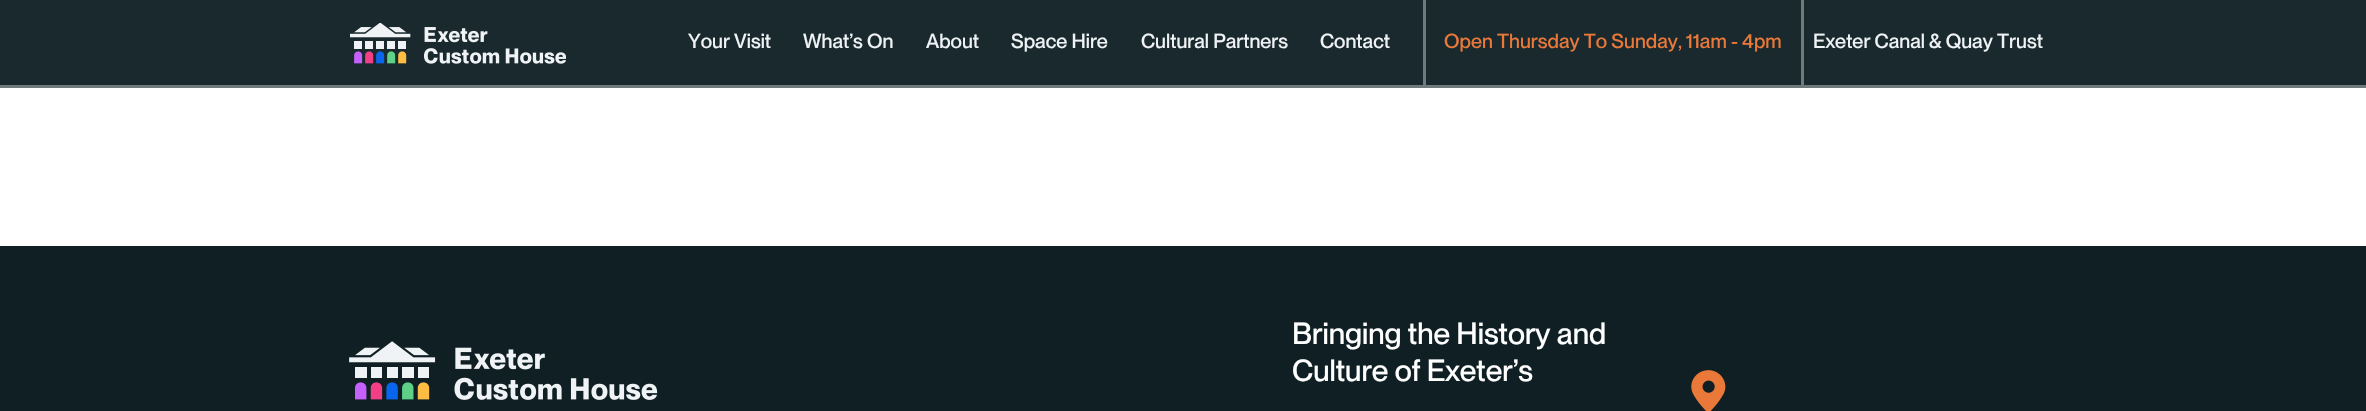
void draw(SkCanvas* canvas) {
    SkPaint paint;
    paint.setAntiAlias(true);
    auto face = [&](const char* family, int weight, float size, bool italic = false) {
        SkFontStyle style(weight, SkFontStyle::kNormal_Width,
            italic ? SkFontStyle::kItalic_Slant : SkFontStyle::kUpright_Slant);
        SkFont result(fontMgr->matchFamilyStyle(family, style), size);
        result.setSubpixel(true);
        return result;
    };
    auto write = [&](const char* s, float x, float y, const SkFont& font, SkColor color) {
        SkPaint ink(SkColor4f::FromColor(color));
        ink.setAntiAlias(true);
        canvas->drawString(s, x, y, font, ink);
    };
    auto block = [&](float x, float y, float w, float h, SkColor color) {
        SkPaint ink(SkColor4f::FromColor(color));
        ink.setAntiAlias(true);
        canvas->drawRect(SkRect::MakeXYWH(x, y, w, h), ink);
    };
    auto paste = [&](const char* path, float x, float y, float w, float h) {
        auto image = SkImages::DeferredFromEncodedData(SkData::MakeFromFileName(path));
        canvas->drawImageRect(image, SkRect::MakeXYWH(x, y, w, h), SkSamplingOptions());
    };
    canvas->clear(SK_ColorWHITE);
    block(0, 0, 2366, 85, SkColorSetRGB(25, 41, 45));
    block(0, 85, 2366, 3, SkColorSetRGB(111, 122, 125));
    paste("pic1.png", 350, 23, 216, 41);
    auto kFont1 = face("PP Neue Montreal", 500, 20);
    write("Your Visit", 688, 48, kFont1, SkColorSetRGB(240, 243, 245));
    write("What’s On", 803, 48, kFont1, SkColorSetRGB(240, 243, 245));
    write("About", 926, 48, kFont1, SkColorSetRGB(240, 243, 245));
    write("Space Hire", 1011, 48, kFont1, SkColorSetRGB(240, 243, 245));
    write("Cultural Partners", 1141, 48, kFont1, SkColorSetRGB(240, 243, 245));
    write("Contact", 1320, 48, kFont1, SkColorSetRGB(240, 243, 245));
    block(1801, 0, 3, 85, SkColorSetRGB(111, 122, 125));
    block(1423, 0, 3, 85, SkColorSetRGB(111, 122, 125));
    write("Open Thursday To Sunday, 11am - 4pm", 1444, 48, kFont1, SkColorSetRGB(233, 120, 57));
    write("Exeter Canal & Quay Trust", 1813, 48, kFont1, SkColorSetRGB(240, 243, 245));
    block(0, 246, 2366, 165, SkColorSetRGB(15, 31, 35));
    paste("pic2.png", 349, 341, 309, 59);
    auto kFont2 = face("PP Neue Montreal", 500, 30);
    write("Bringing the History and", 1292, 344, kFont2, SK_ColorWHITE);
    write("Culture of Exeter’s", 1292, 381, kFont2, SK_ColorWHITE);
    paste("pic3.png", 1691, 370, 35, 41);
}
